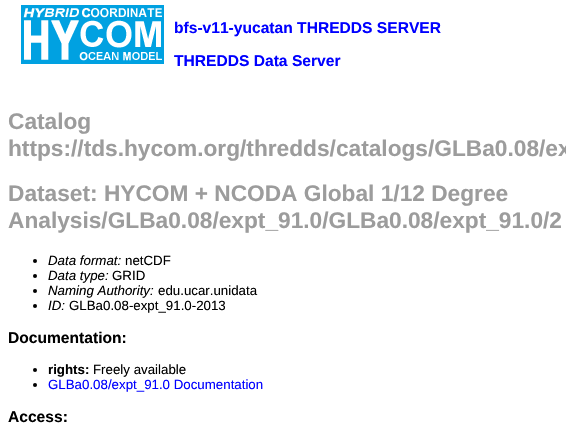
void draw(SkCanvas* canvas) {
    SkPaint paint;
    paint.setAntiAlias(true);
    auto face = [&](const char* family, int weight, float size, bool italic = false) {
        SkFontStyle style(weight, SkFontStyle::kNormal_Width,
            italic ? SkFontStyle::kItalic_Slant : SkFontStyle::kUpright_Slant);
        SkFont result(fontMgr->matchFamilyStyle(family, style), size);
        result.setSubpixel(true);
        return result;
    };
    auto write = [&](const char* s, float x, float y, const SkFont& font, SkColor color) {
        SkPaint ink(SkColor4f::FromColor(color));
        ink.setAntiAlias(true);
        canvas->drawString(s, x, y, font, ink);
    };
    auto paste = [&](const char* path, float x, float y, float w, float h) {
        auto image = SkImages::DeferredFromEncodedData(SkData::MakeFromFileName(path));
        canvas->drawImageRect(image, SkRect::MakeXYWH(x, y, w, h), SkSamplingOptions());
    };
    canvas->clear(SK_ColorWHITE);
    paste("pic1.png", 21, 5, 143, 59);
    auto kFont1 = face("Liberation Sans", 700, 15.6f);
    write("bfs-v11-yucatan THREDDS SERVER", 174, 33, kFont1, SkColorSetRGB(0, 0, 255));
    write("THREDDS Data Server", 174, 66, kFont1, SkColorSetRGB(0, 0, 255));
    auto kFont2 = face("Liberation Sans", 700, 22.7f);
    write("Catalog", 8, 129, kFont2, SkColorSetRGB(156, 156, 156));
    write("https://tds.hycom.org/thredds/catalogs/GLBa0.08/ex", 8, 156, kFont2, SkColorSetRGB(156, 156, 156));
    write("Dataset: HYCOM + NCODA Global 1/12 Degree", 8, 201, kFont2, SkColorSetRGB(156, 156, 156));
    write("Analysis/GLBa0.08/expt_91.0/GLBa0.08/expt_91.0/2", 8, 228, kFont2, SkColorSetRGB(156, 156, 156));
    paint.setColor(SK_ColorBLACK);
    canvas->drawCircle(35, 261, 2, paint);
    auto kFont3 = face("Liberation Sans", 400, 13.3f, true);
    write("Data format:", 48, 265, kFont3, SK_ColorBLACK);
    auto kFont4 = face("Liberation Sans", 400, 13.3f);
    write("netCDF", 125, 265, kFont4, SK_ColorBLACK);
    canvas->drawCircle(35, 276, 2, paint);
    write("Data type:", 48, 280, kFont3, SK_ColorBLACK);
    write("GRID", 112, 280, kFont4, SK_ColorBLACK);
    canvas->drawCircle(35, 291, 2, paint);
    write("Naming Authority:", 48, 295, kFont3, SK_ColorBLACK);
    write("edu.ucar.unidata", 158, 295, kFont4, SK_ColorBLACK);
    canvas->drawCircle(35, 306, 2, paint);
    write("ID:", 48, 310, kFont3, SK_ColorBLACK);
    write("GLBa0.08-expt_91.0-2013", 69, 310, kFont4, SK_ColorBLACK);
    write("Documentation:", 8, 343, kFont1, SK_ColorBLACK);
    canvas->drawCircle(35, 370, 2, paint);
    auto kFont5 = face("Liberation Sans", 700, 13.3f);
    write("rights:", 48, 374, kFont5, SK_ColorBLACK);
    write("Freely available", 93, 374, kFont4, SK_ColorBLACK);
    canvas->drawCircle(35, 385, 2, paint);
    write("GLBa0.08/expt_91.0 Documentation", 48, 389, kFont4, SkColorSetRGB(0, 0, 255));
    write("Access:", 8, 422, kFont1, SK_ColorBLACK);
}
